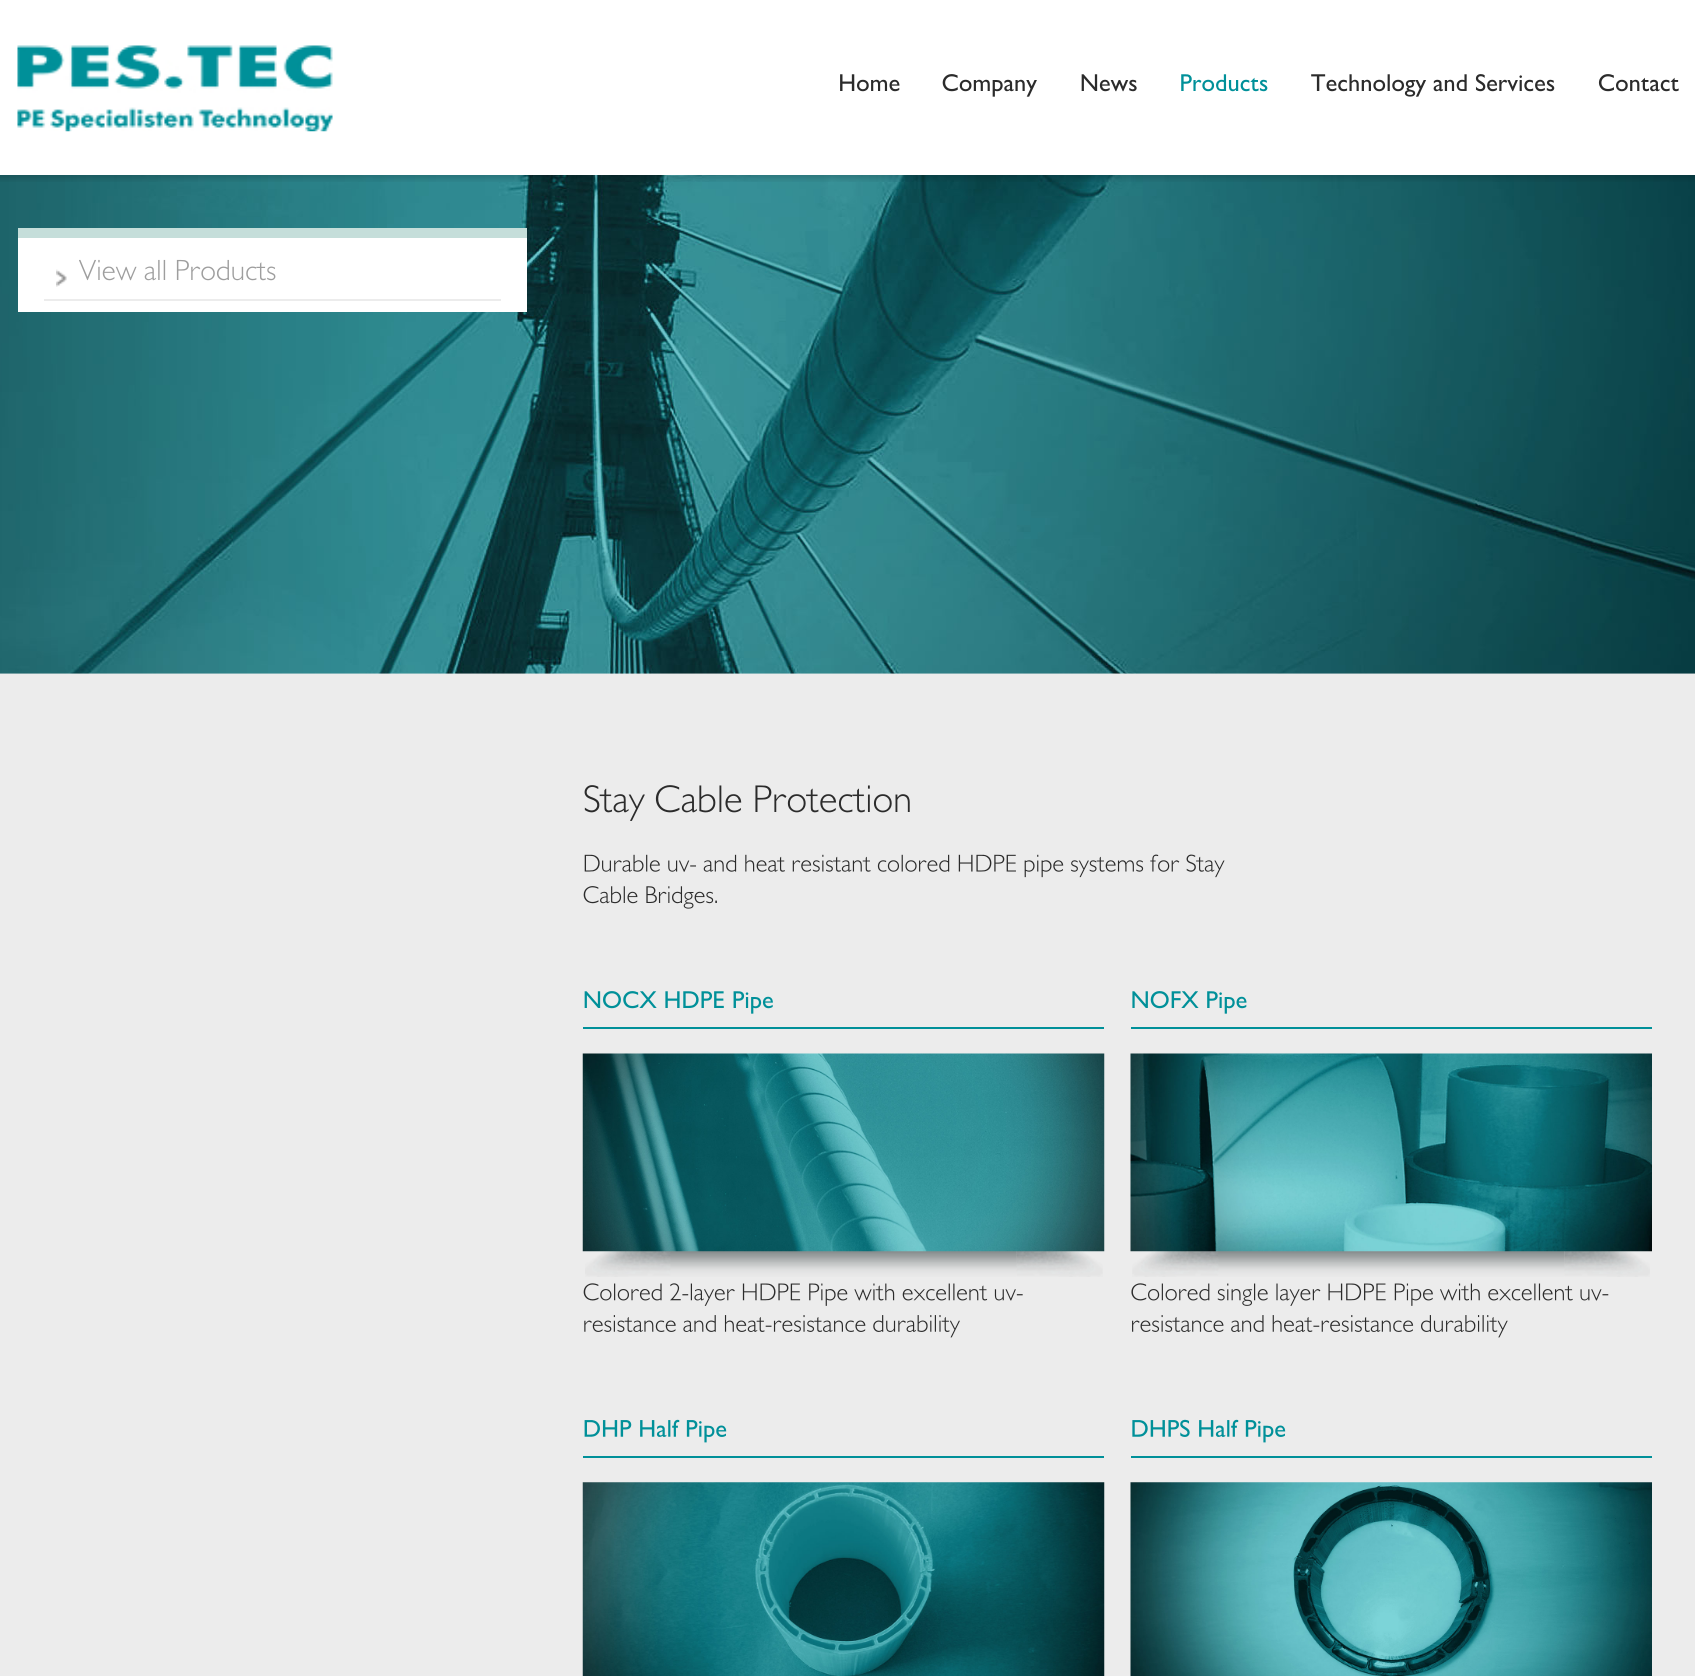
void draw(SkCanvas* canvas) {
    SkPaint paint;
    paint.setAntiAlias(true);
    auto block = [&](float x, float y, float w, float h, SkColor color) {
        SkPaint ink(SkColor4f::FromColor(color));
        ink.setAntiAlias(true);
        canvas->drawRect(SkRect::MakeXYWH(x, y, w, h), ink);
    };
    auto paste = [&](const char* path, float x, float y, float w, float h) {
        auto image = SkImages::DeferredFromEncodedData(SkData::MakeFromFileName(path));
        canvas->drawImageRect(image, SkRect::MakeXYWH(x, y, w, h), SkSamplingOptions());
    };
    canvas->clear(SkColorSetRGB(236, 236, 236));
    block(0, 0, 1695, 175, SK_ColorWHITE);
    paste("pic1.png", 17, 45, 316, 87);
    paste("pic2.png", 840, 74, 60, 18);
    paste("pic3.png", 942, 74, 95, 23);
    paste("pic4.png", 1081, 74, 56, 18);
    paste("pic5.png", 1181, 74, 87, 18);
    paste("pic6.png", 1311, 74, 244, 23);
    paste("pic7.png", 1598, 74, 81, 18);
    paste("pic9.png", 0, 175, 1695, 499);
    paste("pic8.png", 0, 175, 1695, 7);
    block(18, 238, 509, 74, SK_ColorWHITE);
    block(18, 228, 509, 10, SkColorSetRGB(197, 222, 218));
    block(44, 299, 457, 2, SkColorSetRGB(236, 236, 236));
    paste("pic10.png", 56, 269, 11, 18);
    paste("pic11.png", 79, 259, 197, 22);
    paste("pic12.png", 584, 785, 326, 36);
    paste("pic13.png", 584, 854, 641, 24);
    paste("pic14.png", 583, 886, 134, 23);
    block(583, 1027, 521, 2, SkColorSetRGB(0, 144, 153));
    paste("pic15.png", 584, 991, 189, 23);
    paste("pic17.png", 585, 1251, 432, 26);
    paste("pic18.png", 1016, 1251, 87, 26);
    paste("pic16.png", 582, 1053, 523, 199);
    paste("pic19.png", 583, 1283, 440, 23);
    paste("pic20.png", 584, 1315, 376, 23);
    block(1131, 1027, 521, 2, SkColorSetRGB(0, 144, 153));
    paste("pic21.png", 1132, 991, 115, 23);
    paste("pic23.png", 1132, 1251, 433, 26);
    paste("pic24.png", 1564, 1251, 86, 26);
    paste("pic22.png", 1130, 1053, 522, 199);
    paste("pic25.png", 1131, 1283, 478, 23);
    paste("pic26.png", 1132, 1315, 376, 23);
    block(583, 1456, 521, 2, SkColorSetRGB(0, 144, 153));
    paste("pic27.png", 584, 1419, 143, 24);
    paste("pic28.png", 582, 1482, 523, 194);
    block(1131, 1456, 521, 2, SkColorSetRGB(0, 144, 153));
    paste("pic29.png", 1132, 1419, 154, 24);
    paste("pic30.png", 1130, 1482, 522, 194);
}
